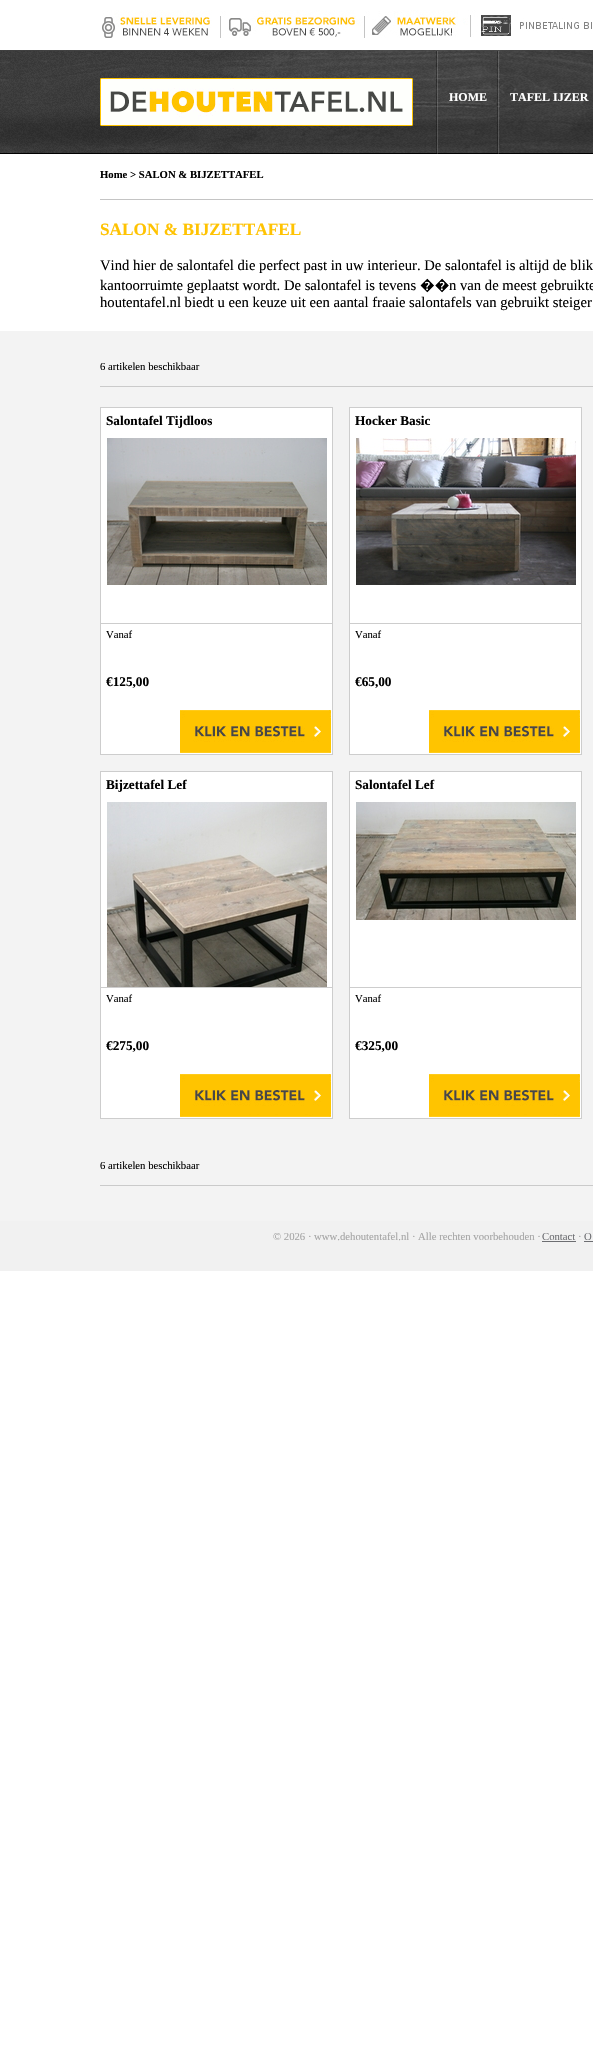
void draw(SkCanvas* canvas) {
    SkPaint paint;
    paint.setAntiAlias(true);
    auto face = [&](const char* family, int weight, float size, bool italic = false) {
        SkFontStyle style(weight, SkFontStyle::kNormal_Width,
            italic ? SkFontStyle::kItalic_Slant : SkFontStyle::kUpright_Slant);
        SkFont result(fontMgr->matchFamilyStyle(family, style), size);
        result.setSubpixel(true);
        return result;
    };
    auto write = [&](const char* s, float x, float y, const SkFont& font, SkColor color) {
        SkPaint ink(SkColor4f::FromColor(color));
        ink.setAntiAlias(true);
        canvas->drawString(s, x, y, font, ink);
    };
    auto block = [&](float x, float y, float w, float h, SkColor color) {
        SkPaint ink(SkColor4f::FromColor(color));
        ink.setAntiAlias(true);
        canvas->drawRect(SkRect::MakeXYWH(x, y, w, h), ink);
    };
    auto paste = [&](const char* path, float x, float y, float w, float h) {
        auto image = SkImages::DeferredFromEncodedData(SkData::MakeFromFileName(path));
        canvas->drawImageRect(image, SkRect::MakeXYWH(x, y, w, h), SkSamplingOptions());
    };
    canvas->clear(SK_ColorWHITE);
    paste("pic1.png", 102, 10, 490, 28);
    paste("pic2.png", 0, 50, 593, 104);
    paste("pic3.png", 100, 78, 313, 48);
    paste("pic4.png", 436, 51, 3, 103);
    auto kFont1 = face("Liberation Serif", 700, 12);
    write("HOME", 449, 101, kFont1, SK_ColorWHITE);
    paste("pic5.png", 497, 50, 3, 104);
    write("TAFEL IJZER", 510, 101, kFont1, SK_ColorWHITE);
    block(100, 199, 493, 1, SkColorSetRGB(196, 196, 196));
    auto kFont2 = face("Liberation Serif", 700, 10.7f);
    write("Home > SALON & BIJZETTAFEL", 100, 178, kFont2, SK_ColorBLACK);
    auto kFont3 = face("Liberation Serif", 700, 17.25f);
    write("SALON & BIJZETTAFEL", 100, 235, kFont3, SkColorSetRGB(255, 195, 1));
    auto kFont4 = face("Liberation Serif", 400, 14.65f);
    write("Vind hier de salontafel die perfect past in uw interieur. De salontafel is altijd de blik", 100, 270, kFont4, SK_ColorBLACK);
    write("kantoorruimte geplaatst wordt. De salontafel is tevens", 100, 290, kFont4, SK_ColorBLACK);
    auto kFont5 = face("Noto Sans", 400, 14.65f);
    write("��", 420, 290, kFont5, SK_ColorBLACK);
    write("n van de meest gebruikte", 449, 290, kFont4, SK_ColorBLACK);
    write("houtentafel.nl biedt u een keuze uit een aantal fraaie salontafels van gebruikt steiger", 100, 307, kFont4, SK_ColorBLACK);
    block(0, 331, 593, 890, SkColorSetRGB(243, 243, 243));
    block(100, 386, 493, 1, SkColorSetRGB(202, 202, 202));
    auto kFont6 = face("Liberation Serif", 400, 10.7f);
    write("6 artikelen beschikbaar", 100, 370, kFont6, SK_ColorBLACK);
    paint.setColor(SK_ColorWHITE);
    canvas->drawRect(SkRect::MakeXYWH(100.5f, 407.5f, 232, 347), paint);
    paint.setStyle(SkPaint::kStroke_Style);
    paint.setStrokeWidth(1);
    paint.setColor(SkColorSetRGB(205, 205, 205));
    canvas->drawRect(SkRect::MakeXYWH(100.5f, 407.5f, 232, 347), paint);
    auto kFont7 = face("Liberation Serif", 700, 13.25f);
    write("Salontafel Tijdloos", 106, 425, kFont7, SK_ColorBLACK);
    block(101, 623, 231, 1, SkColorSetRGB(205, 205, 205));
    paste("pic6.png", 107, 438, 220, 147);
    write("Vanaf", 106, 638, kFont6, SK_ColorBLACK);
    write("€125,00", 106, 686, kFont7, SK_ColorBLACK);
    paste("pic7.png", 180, 710, 151, 43);
    paint.setStyle(SkPaint::kFill_Style);
    paint.setColor(SK_ColorWHITE);
    canvas->drawRect(SkRect::MakeXYWH(349.5f, 407.5f, 232, 347), paint);
    paint.setStyle(SkPaint::kStroke_Style);
    paint.setColor(SkColorSetRGB(205, 205, 205));
    canvas->drawRect(SkRect::MakeXYWH(349.5f, 407.5f, 232, 347), paint);
    write("Hocker Basic", 355, 425, kFont7, SK_ColorBLACK);
    block(350, 623, 231, 1, SkColorSetRGB(205, 205, 205));
    paste("pic8.png", 356, 438, 220, 147);
    write("Vanaf", 355, 638, kFont6, SK_ColorBLACK);
    write("€65,00", 355, 686, kFont7, SK_ColorBLACK);
    paste("pic7.png", 429, 710, 151, 43);
    paint.setStyle(SkPaint::kFill_Style);
    paint.setColor(SK_ColorWHITE);
    canvas->drawRect(SkRect::MakeXYWH(100.5f, 771.5f, 232, 347), paint);
    paint.setStyle(SkPaint::kStroke_Style);
    paint.setColor(SkColorSetRGB(205, 205, 205));
    canvas->drawRect(SkRect::MakeXYWH(100.5f, 771.5f, 232, 347), paint);
    write("Bijzettafel Lef", 106, 789, kFont7, SK_ColorBLACK);
    block(101, 987, 231, 1, SkColorSetRGB(205, 205, 205));
    paste("pic9.png", 107, 802, 220, 185);
    write("Vanaf", 106, 1002, kFont6, SK_ColorBLACK);
    write("€275,00", 106, 1050, kFont7, SK_ColorBLACK);
    paste("pic7.png", 180, 1074, 151, 43);
    paint.setStyle(SkPaint::kFill_Style);
    paint.setColor(SK_ColorWHITE);
    canvas->drawRect(SkRect::MakeXYWH(349.5f, 771.5f, 232, 347), paint);
    paint.setStyle(SkPaint::kStroke_Style);
    paint.setColor(SkColorSetRGB(205, 205, 205));
    canvas->drawRect(SkRect::MakeXYWH(349.5f, 771.5f, 232, 347), paint);
    write("Salontafel Lef", 355, 789, kFont7, SK_ColorBLACK);
    block(350, 987, 231, 1, SkColorSetRGB(205, 205, 205));
    paste("pic10.png", 356, 802, 220, 118);
    write("Vanaf", 355, 1002, kFont6, SK_ColorBLACK);
    write("€325,00", 355, 1050, kFont7, SK_ColorBLACK);
    paste("pic7.png", 429, 1074, 151, 43);
    block(100, 1185, 493, 1, SkColorSetRGB(202, 202, 202));
    write("6 artikelen beschikbaar", 100, 1169, kFont6, SK_ColorBLACK);
    block(0, 1221, 593, 50, SkColorSetRGB(241, 241, 241));
    write("© 2026 · www.dehoutentafel.nl · Alle rechten voorbehouden ·", 273, 1240, kFont6, SkColorSetRGB(165, 165, 165));
    write("Contact", 542, 1240, kFont6, SkColorSetRGB(109, 110, 114));
    block(542, 1241, 34, 1, SkColorSetRGB(109, 110, 114));
    write("·", 578, 1240, kFont6, SkColorSetRGB(165, 165, 165));
    write("O", 584, 1240, kFont6, SkColorSetRGB(109, 110, 114));
    block(584, 1241, 9, 1, SkColorSetRGB(109, 110, 114));
}
